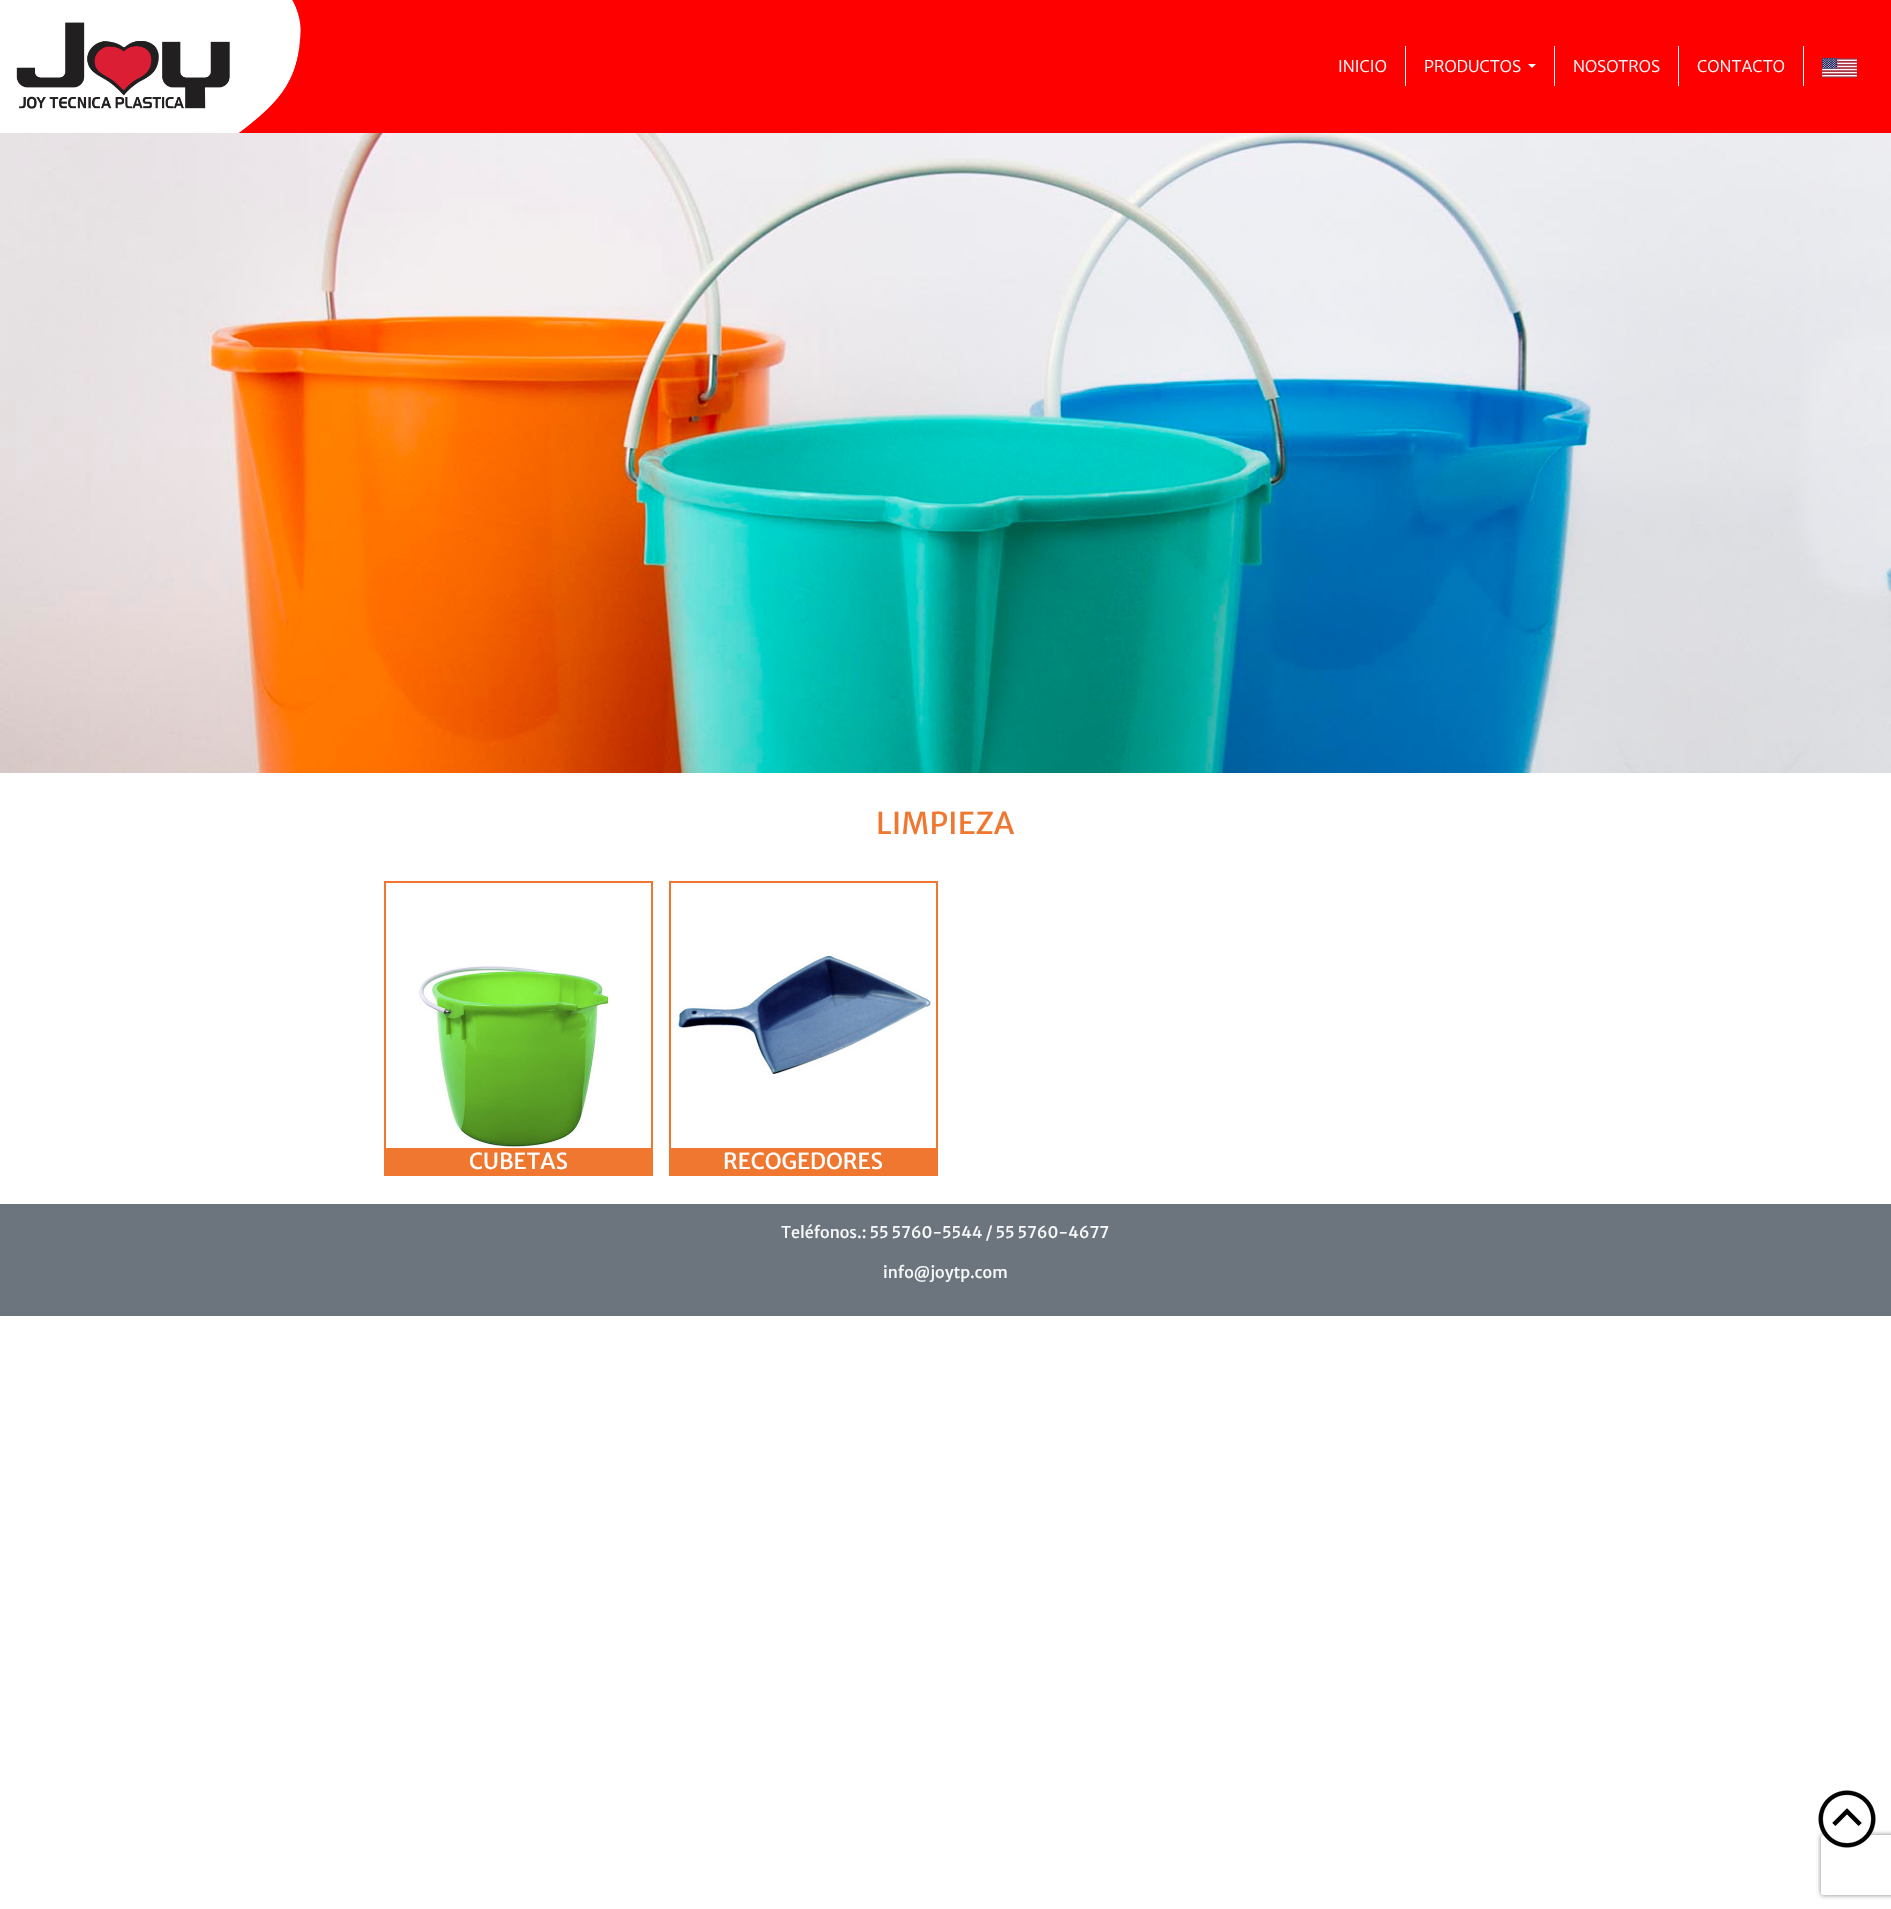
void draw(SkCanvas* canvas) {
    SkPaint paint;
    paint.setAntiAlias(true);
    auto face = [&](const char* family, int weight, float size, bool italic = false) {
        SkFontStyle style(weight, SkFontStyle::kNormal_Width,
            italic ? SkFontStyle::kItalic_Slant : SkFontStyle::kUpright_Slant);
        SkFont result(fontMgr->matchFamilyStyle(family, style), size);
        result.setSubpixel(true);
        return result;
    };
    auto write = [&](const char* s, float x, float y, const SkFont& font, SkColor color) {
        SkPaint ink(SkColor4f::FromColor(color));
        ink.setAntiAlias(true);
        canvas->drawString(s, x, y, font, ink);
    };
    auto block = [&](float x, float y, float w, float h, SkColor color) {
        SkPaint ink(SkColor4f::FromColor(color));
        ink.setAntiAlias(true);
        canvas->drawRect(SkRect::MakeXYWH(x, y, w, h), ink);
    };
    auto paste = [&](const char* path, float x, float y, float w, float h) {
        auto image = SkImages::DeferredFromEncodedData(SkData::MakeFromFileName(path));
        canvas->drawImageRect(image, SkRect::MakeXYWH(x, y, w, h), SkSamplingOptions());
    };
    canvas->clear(SK_ColorWHITE);
    block(238, 0, 1653, 133, SkColorSetRGB(255, 0, 0));
    paste("pic1.png", 0, 0, 301, 133);
    block(1405, 46, 1, 40, SK_ColorWHITE);
    auto kFont1 = face("Merriweather Sans", 300, 16);
    write("INICIO", 1338, 72, kFont1, SkColorSetRGB(248, 249, 250));
    block(1554, 46, 1, 40, SK_ColorWHITE);
    write("PRODUCTOS", 1424, 72, kFont1, SkColorSetRGB(248, 249, 250));
    paint.setColor(SkColorSetRGB(248, 249, 250));
    canvas->drawPath(SkPathBuilder().moveTo(1528, 64).lineTo(1536, 64).lineTo(1532, 68).close().detach(), paint);
    block(1678, 46, 1, 40, SK_ColorWHITE);
    write("NOSOTROS", 1573, 72, kFont1, SkColorSetRGB(248, 249, 250));
    block(1803, 46, 1, 40, SK_ColorWHITE);
    write("CONTACTO", 1697, 72, kFont1, SkColorSetRGB(248, 249, 250));
    paste("pic2.png", 1822, 58, 35, 20);
    paste("pic3.png", 0, 133, 1891, 640);
    auto kFont2 = face("Merriweather Sans", 400, 30);
    write("LIMPIEZA", 876, 834, kFont2, SkColorSetRGB(240, 119, 48));
    paint.setStyle(SkPaint::kStroke_Style);
    paint.setStrokeWidth(2);
    paint.setColor(SkColorSetRGB(240, 119, 48));
    canvas->drawRect(SkRect::MakeXYWH(385, 882, 267, 293), paint);
    paste("pic4.png", 419, 966, 191, 182);
    block(386, 1148, 265, 26, SkColorSetRGB(240, 119, 48));
    auto kFont3 = face("Merriweather Sans", 400, 22);
    write("CUBETAS", 469, 1169, kFont3, SK_ColorWHITE);
    canvas->drawRect(SkRect::MakeXYWH(670, 882, 267, 293), paint);
    paste("pic5.png", 675, 954, 258, 120);
    block(671, 1148, 265, 26, SkColorSetRGB(240, 119, 48));
    write("RECOGEDORES", 723, 1169, kFont3, SK_ColorWHITE);
    block(0, 1204, 1891, 112, SkColorSetRGB(108, 117, 125));
    auto kFont4 = face("Merriweather Sans", 400, 16);
    write("Teléfonos.: 55 5760-5544 / 55 5760-4677", 781, 1238, kFont4, SkColorSetRGB(248, 249, 250));
    write("info@joytp.com", 883, 1278, kFont4, SkColorSetRGB(248, 249, 250));
    canvas->save();
    canvas->clipPath(SkPathBuilder(SkPathFillType::kEvenOdd).moveTo(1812, 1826).lineTo(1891, 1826).lineTo(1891, 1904).lineTo(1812, 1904).close().moveTo(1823, 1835).lineTo(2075, 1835).cubicTo(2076, 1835, 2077, 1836, 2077, 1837).lineTo(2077, 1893).cubicTo(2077, 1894, 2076, 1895, 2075, 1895).lineTo(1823, 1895).cubicTo(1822, 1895, 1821, 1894, 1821, 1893).lineTo(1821, 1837).cubicTo(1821, 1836, 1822, 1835, 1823, 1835).close().detach(), true);
    paint.setStyle(SkPaint::kFill_Style);
    paint.setColor(SkColorSetRGB(128, 128, 128));
    paint.setMaskFilter(SkMaskFilter::MakeBlur(kNormal_SkBlurStyle, 2.5f));
    canvas->drawRoundRect(SkRect::MakeXYWH(1821, 1835, 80, 60), 2, 2, paint);
    paint.setMaskFilter(nullptr);
    canvas->restore();
    paste("pic6.png", 1818, 1790, 58, 58);
}
